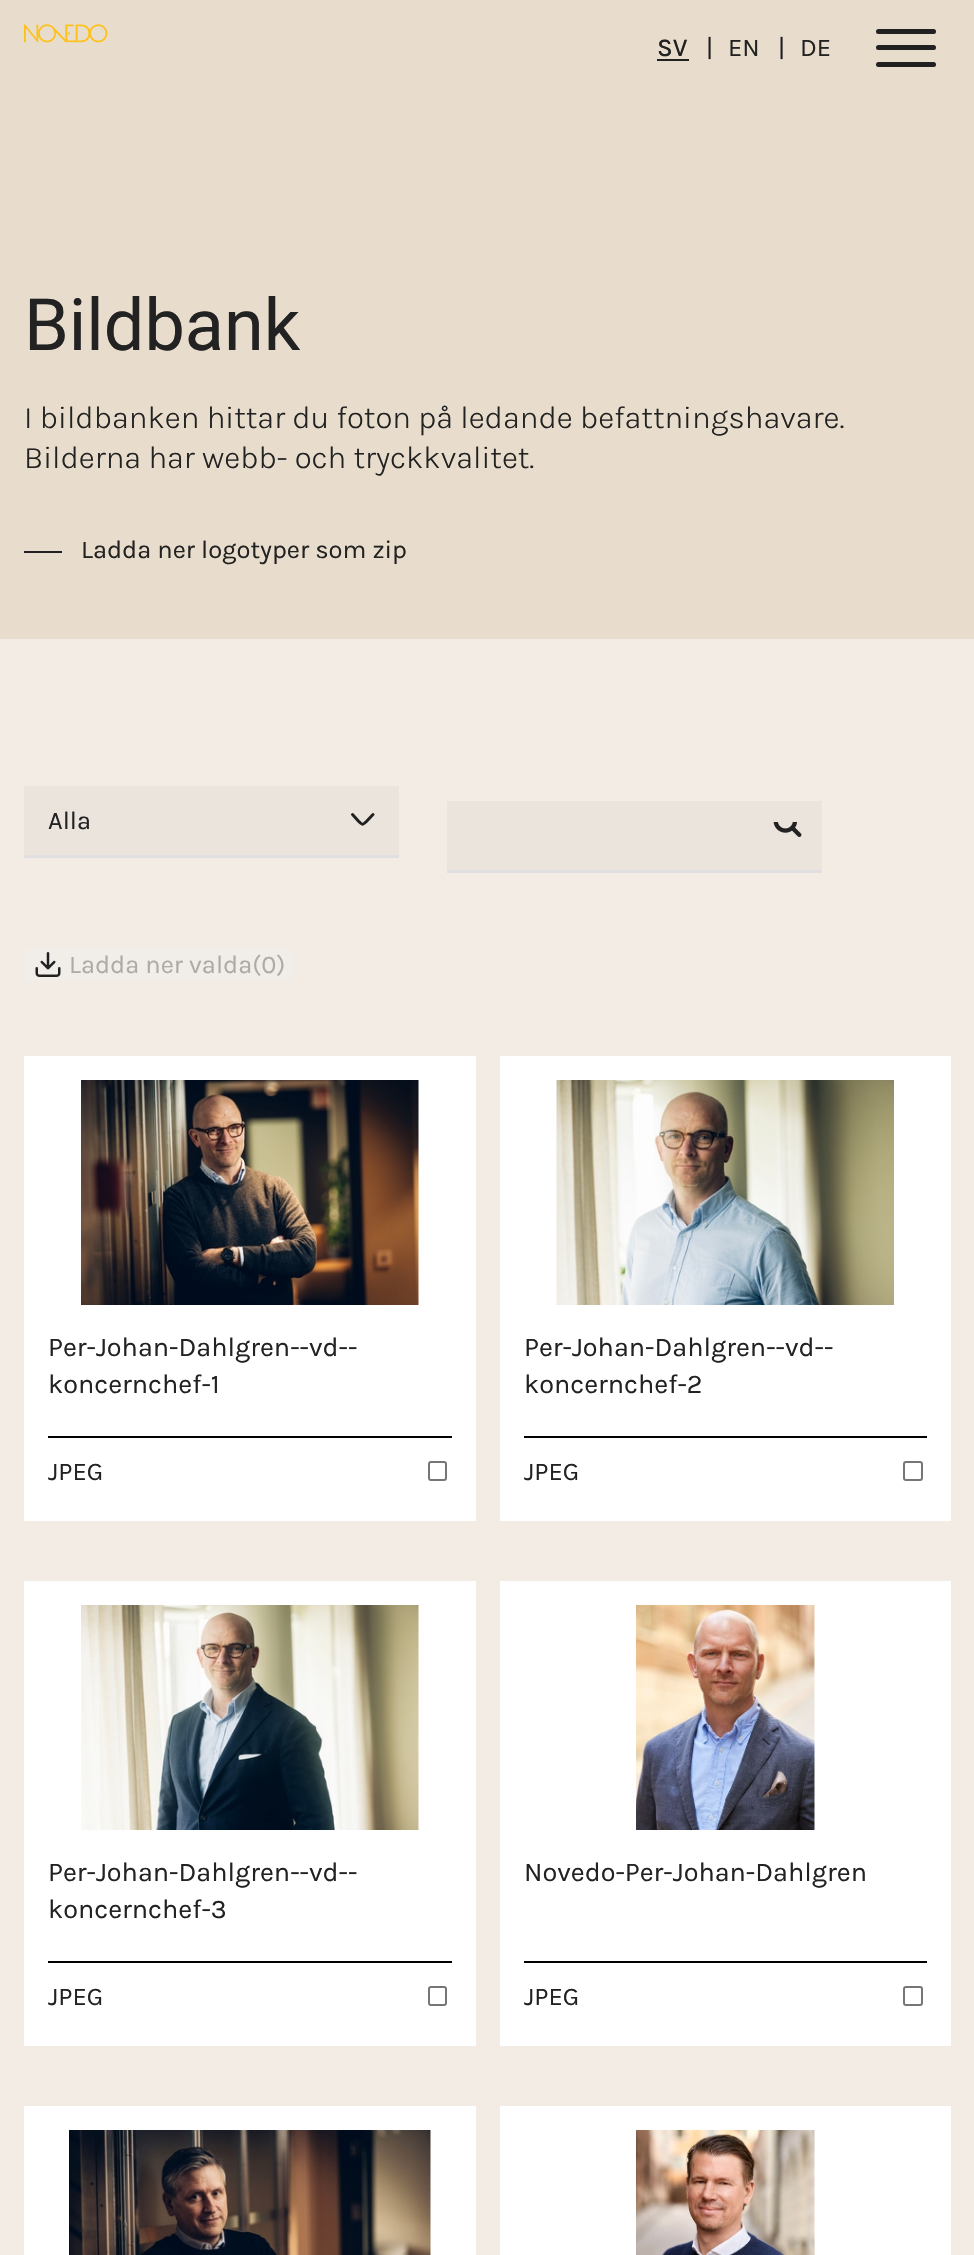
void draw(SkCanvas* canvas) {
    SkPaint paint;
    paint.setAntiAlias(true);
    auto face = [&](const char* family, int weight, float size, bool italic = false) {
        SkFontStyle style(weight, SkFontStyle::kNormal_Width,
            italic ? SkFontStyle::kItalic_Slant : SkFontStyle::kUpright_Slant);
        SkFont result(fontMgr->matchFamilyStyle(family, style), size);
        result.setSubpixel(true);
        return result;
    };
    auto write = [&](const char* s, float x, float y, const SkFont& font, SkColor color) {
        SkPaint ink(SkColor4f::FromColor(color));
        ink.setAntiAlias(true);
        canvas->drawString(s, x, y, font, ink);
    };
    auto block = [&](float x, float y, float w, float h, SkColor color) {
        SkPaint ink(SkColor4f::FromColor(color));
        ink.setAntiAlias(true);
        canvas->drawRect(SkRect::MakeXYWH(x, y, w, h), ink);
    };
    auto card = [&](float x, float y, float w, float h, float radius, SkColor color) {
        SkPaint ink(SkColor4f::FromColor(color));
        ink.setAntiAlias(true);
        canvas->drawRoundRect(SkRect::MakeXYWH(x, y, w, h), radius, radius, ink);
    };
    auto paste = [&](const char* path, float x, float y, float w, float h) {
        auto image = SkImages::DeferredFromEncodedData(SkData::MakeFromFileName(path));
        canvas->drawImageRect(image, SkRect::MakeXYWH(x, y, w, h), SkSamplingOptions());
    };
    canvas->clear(SkColorSetRGB(232, 221, 204));
    paste("pic1.png", 24, 24, 84, 19);
    auto kFont1 = face("Karla", 500, 25.5f);
    write("SV", 657, 56, kFont1, SkColorSetRGB(34, 34, 34));
    block(657, 59, 32, 2, SkColorSetRGB(33, 33, 33));
    auto kFont2 = face("Karla", 400, 25.5f);
    write("|", 706, 56, kFont2, SkColorSetRGB(34, 34, 34));
    write("EN", 728, 56, kFont2, SkColorSetRGB(34, 34, 34));
    write("|", 778, 56, kFont2, SkColorSetRGB(34, 34, 34));
    write("DE", 800, 56, kFont2, SkColorSetRGB(34, 34, 34));
    card(876, 29, 60, 5, 2.5f, SkColorSetRGB(33, 33, 33));
    card(876, 45, 60, 5, 2.5f, SkColorSetRGB(33, 33, 33));
    card(876, 62, 60, 5, 2.5f, SkColorSetRGB(33, 33, 33));
    auto kFont3 = face("Roboto", 400, 72);
    write("Bildbank", 24, 350, kFont3, SkColorSetRGB(34, 34, 34));
    auto kFont4 = face("Karla", 300, 31.5f);
    write("I bildbanken hittar du foton på ledande befattningshavare.", 24, 428, kFont4, SkColorSetRGB(34, 34, 34));
    write("Bilderna har webb- och tryckkvalitet.", 24, 468, kFont4, SkColorSetRGB(34, 34, 34));
    block(24, 551, 38, 2, SkColorSetRGB(33, 33, 33));
    write("Ladda ner logotyper som zip", 81, 558, kFont2, SkColorSetRGB(34, 34, 34));
    block(0, 639, 974, 1616, SkColorSetRGB(242, 236, 229));
    block(24, 786, 375, 69, SkColorSetRGB(234, 228, 221));
    paint.setStyle(SkPaint::kStroke_Style);
    paint.setStrokeWidth(3);
    paint.setStrokeCap(SkPaint::kRound_Cap);
    paint.setStrokeJoin(SkPaint::kRound_Join);
    paint.setColor(SkColorSetRGB(33, 33, 33));
    canvas->drawPath(SkPathBuilder().moveTo(352.5f, 814.5f).cubicTo(364.5f, 827.5f, 360.5f, 827.5f, 373, 814.5f).detach(), paint);
    block(24, 855, 375, 3, SkColorSetRGB(224, 224, 224));
    write("Alla", 48, 829, kFont2, SkColorSetRGB(34, 34, 34));
    block(447, 801, 375, 69, SkColorSetRGB(234, 228, 221));
    block(447, 870, 375, 3, SkColorSetRGB(224, 224, 224));
    paste("pic2.png", 773, 822, 29, 15);
    block(24, 948, 270, 33, SkColorSetRGB(241, 237, 232));
    paste("pic3.png", 35, 952, 26, 25);
    write("Ladda ner valda(0)", 69, 973, kFont2, SkColorSetRGB(174, 171, 167));
    block(24, 1056, 452, 465, SK_ColorWHITE);
    paste("pic4.png", 81, 1080, 338, 225);
    block(48, 1436, 404, 2, SK_ColorBLACK);
    auto kFont5 = face("Karla", 400, 27);
    write("Per-Johan-Dahlgren--vd--", 48, 1356, kFont5, SkColorSetRGB(34, 34, 34));
    write("koncernchef-1", 48, 1393, kFont5, SkColorSetRGB(34, 34, 34));
    write("JPEG", 48, 1480, kFont2, SkColorSetRGB(34, 34, 34));
    paint.setStrokeWidth(2);
    paint.setStrokeCap(SkPaint::kButt_Cap);
    paint.setStrokeJoin(SkPaint::kMiter_Join);
    paint.setColor(SkColorSetRGB(118, 118, 118));
    canvas->drawRoundRect(SkRect::MakeXYWH(429, 1462, 17, 18), 2, 2, paint);
    block(500, 1056, 451, 465, SK_ColorWHITE);
    paste("pic5.png", 556, 1080, 338, 225);
    block(524, 1436, 403, 2, SK_ColorBLACK);
    write("Per-Johan-Dahlgren--vd--", 524, 1356, kFont5, SkColorSetRGB(34, 34, 34));
    write("koncernchef-2", 524, 1393, kFont5, SkColorSetRGB(34, 34, 34));
    write("JPEG", 524, 1480, kFont2, SkColorSetRGB(34, 34, 34));
    canvas->drawRoundRect(SkRect::MakeXYWH(904, 1462, 18, 18), 2, 2, paint);
    block(24, 1581, 452, 465, SK_ColorWHITE);
    paste("pic6.png", 81, 1605, 338, 225);
    block(48, 1961, 404, 2, SK_ColorBLACK);
    write("Per-Johan-Dahlgren--vd--", 48, 1881, kFont5, SkColorSetRGB(34, 34, 34));
    write("koncernchef-3", 48, 1918, kFont5, SkColorSetRGB(34, 34, 34));
    write("JPEG", 48, 2005, kFont2, SkColorSetRGB(34, 34, 34));
    canvas->drawRoundRect(SkRect::MakeXYWH(429, 1987, 17, 18), 2, 2, paint);
    block(500, 1581, 451, 465, SK_ColorWHITE);
    paste("pic7.png", 636, 1605, 179, 225);
    block(524, 1961, 403, 2, SK_ColorBLACK);
    write("Novedo-Per-Johan-Dahlgren", 524, 1881, kFont5, SkColorSetRGB(34, 34, 34));
    write("JPEG", 524, 2005, kFont2, SkColorSetRGB(34, 34, 34));
    canvas->drawRoundRect(SkRect::MakeXYWH(904, 1987, 18, 18), 2, 2, paint);
    block(24, 2106, 452, 149, SK_ColorWHITE);
    paste("pic8.png", 69, 2130, 362, 125);
    block(500, 2106, 451, 149, SK_ColorWHITE);
    paste("pic9.png", 636, 2130, 179, 125);
}
